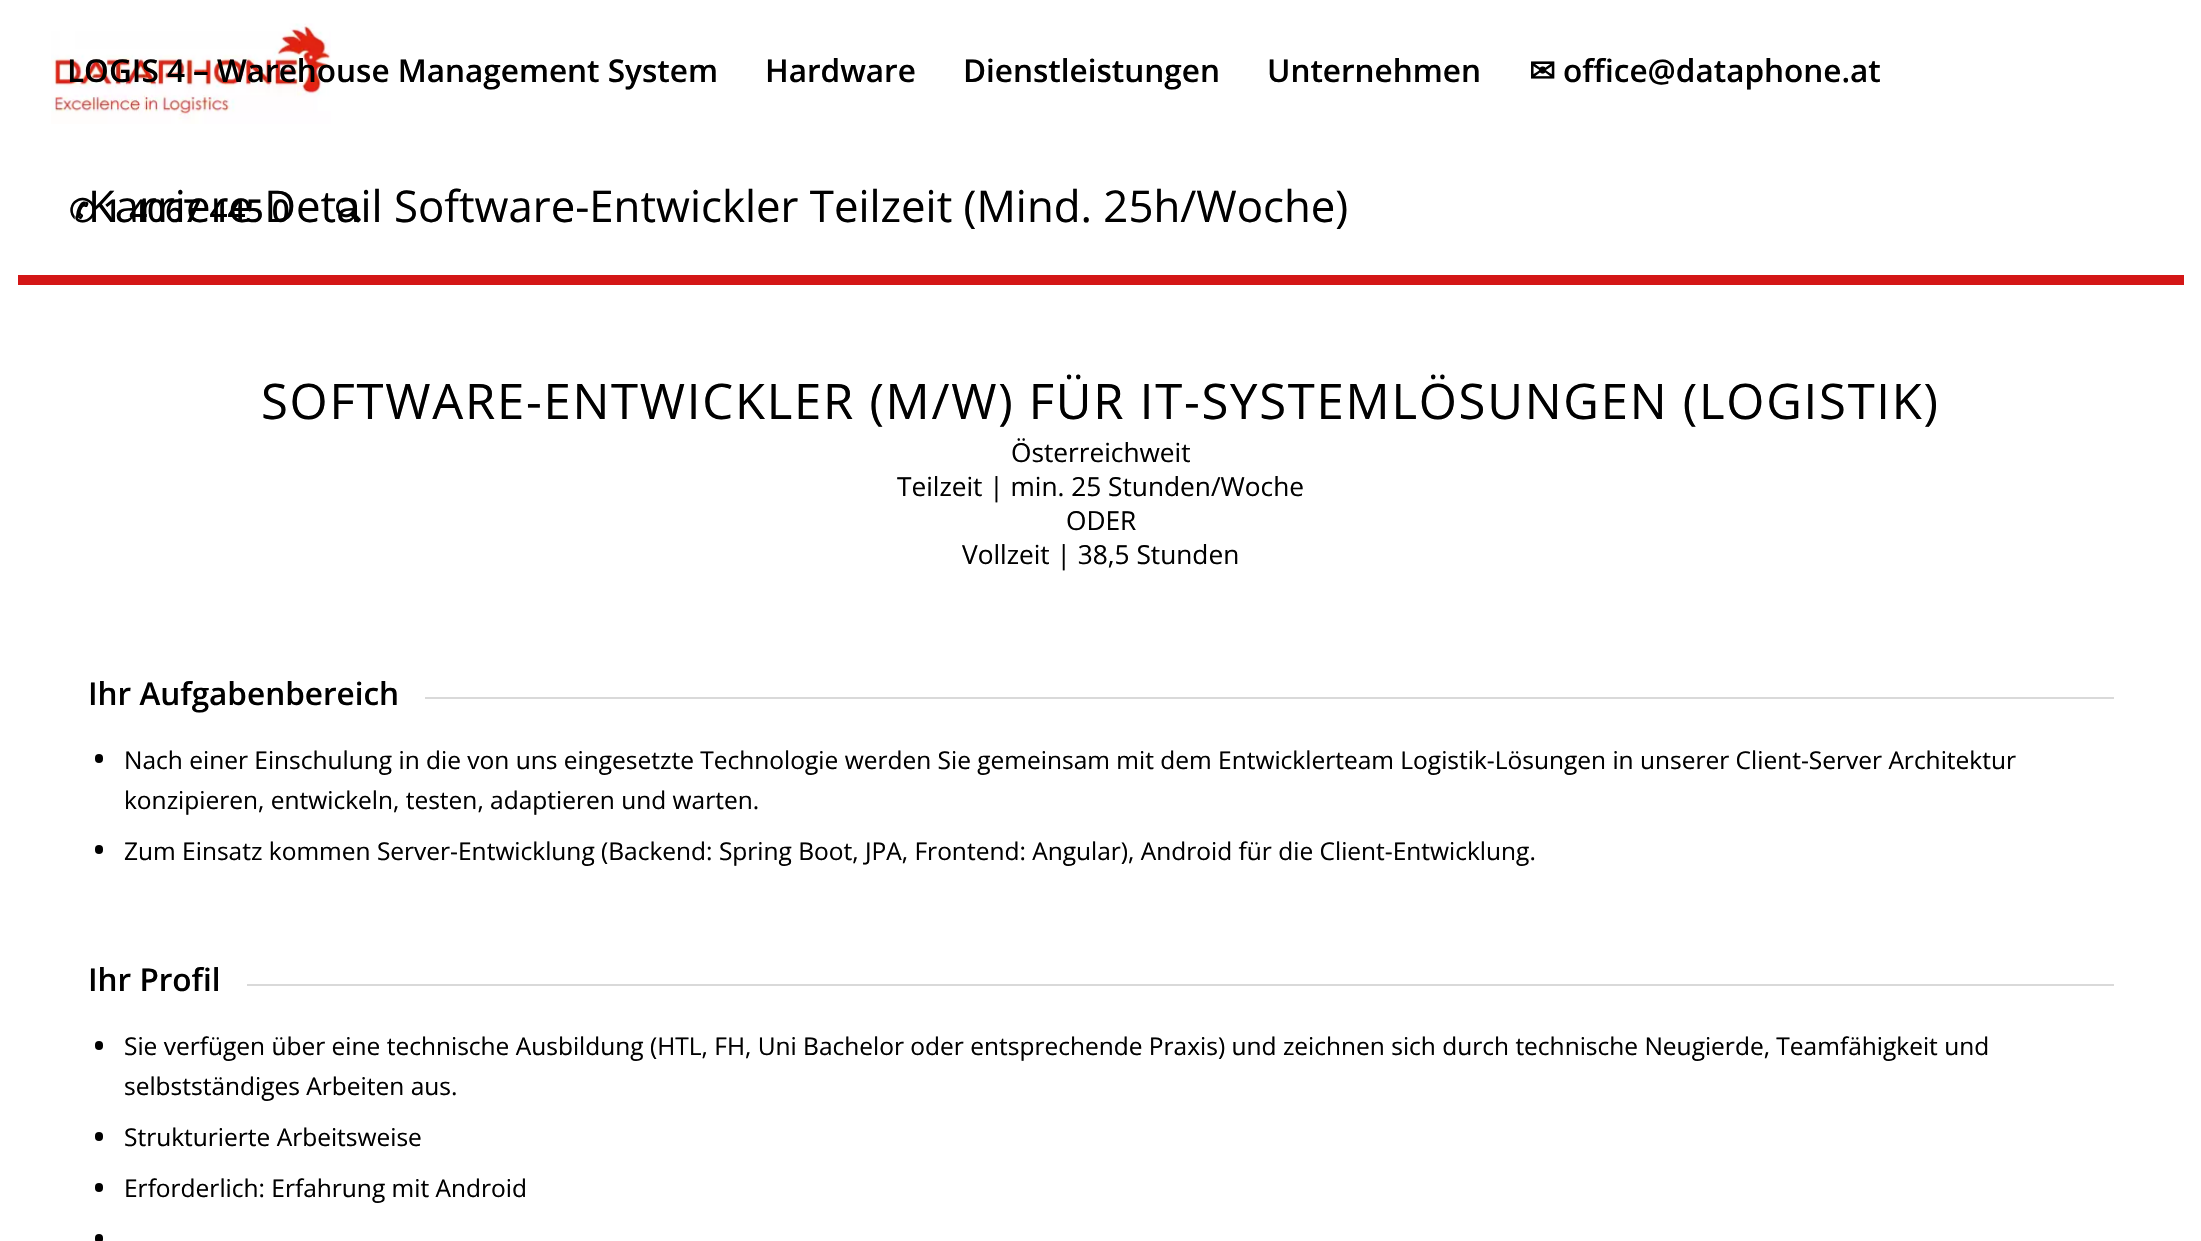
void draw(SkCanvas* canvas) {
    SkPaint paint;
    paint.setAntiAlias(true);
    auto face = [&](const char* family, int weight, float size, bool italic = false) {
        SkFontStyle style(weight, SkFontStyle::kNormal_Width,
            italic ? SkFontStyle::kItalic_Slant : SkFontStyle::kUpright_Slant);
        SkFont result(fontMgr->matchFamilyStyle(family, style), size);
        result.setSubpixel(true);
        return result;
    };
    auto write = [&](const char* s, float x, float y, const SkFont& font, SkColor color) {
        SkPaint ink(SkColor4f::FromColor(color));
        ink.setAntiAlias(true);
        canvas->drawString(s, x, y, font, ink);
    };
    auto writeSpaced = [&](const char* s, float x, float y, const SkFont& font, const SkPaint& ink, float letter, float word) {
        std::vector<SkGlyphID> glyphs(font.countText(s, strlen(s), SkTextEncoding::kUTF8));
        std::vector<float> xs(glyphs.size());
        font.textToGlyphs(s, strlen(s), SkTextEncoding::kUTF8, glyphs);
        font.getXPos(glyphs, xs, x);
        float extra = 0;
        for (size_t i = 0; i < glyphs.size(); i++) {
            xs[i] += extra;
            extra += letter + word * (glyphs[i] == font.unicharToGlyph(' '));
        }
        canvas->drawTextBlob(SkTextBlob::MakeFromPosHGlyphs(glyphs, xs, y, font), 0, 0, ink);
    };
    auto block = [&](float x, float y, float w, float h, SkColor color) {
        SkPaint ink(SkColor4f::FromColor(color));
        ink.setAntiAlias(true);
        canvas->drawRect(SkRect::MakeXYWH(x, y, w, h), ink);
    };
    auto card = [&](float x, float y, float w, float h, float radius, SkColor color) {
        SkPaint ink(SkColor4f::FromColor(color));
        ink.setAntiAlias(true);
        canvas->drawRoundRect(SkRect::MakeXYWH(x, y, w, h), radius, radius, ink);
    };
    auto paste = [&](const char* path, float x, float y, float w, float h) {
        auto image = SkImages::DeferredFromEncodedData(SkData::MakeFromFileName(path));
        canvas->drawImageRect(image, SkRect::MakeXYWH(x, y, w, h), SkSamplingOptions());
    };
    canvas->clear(SK_ColorWHITE);
    paste("pic1.png", 51, 23, 280, 101);
    auto kFont1 = face("Open Sans", 600, 31.5f);
    write("LOGIS 4 – Warehouse Management System", 67, 82, kFont1, SK_ColorBLACK);
    write("Hardware", 765, 82, kFont1, SK_ColorBLACK);
    write("Dienstleistungen", 963, 82, kFont1, SK_ColorBLACK);
    write("Unternehmen", 1267, 82, kFont1, SK_ColorBLACK);
    auto kFont2 = face("DejaVu Sans", 700, 31.5f);
    write("✉", 1529, 82, kFont2, SK_ColorBLACK);
    write("office@dataphone.at", 1563, 82, kFont1, SK_ColorBLACK);
    auto kFont3 = face("Open Sans", 400, 43.75f);
    write("Karriere Detail Software-Entwickler Teilzeit (Mind. 25h/Woche)", 88, 222, kFont3, SK_ColorBLACK);
    write("✆", 69, 222, kFont2, SK_ColorBLACK);
    write("1 4067 445 0", 103, 222, kFont1, SK_ColorBLACK);
    paste("pic2.png", 336, 197, 25, 26);
    block(18, 275, 2166, 10, SkColorSetRGB(212, 22, 22));
    auto kFont4 = face("Open Sans", 400, 49);
    paint.setColor(SK_ColorBLACK);
    writeSpaced("SOFTWARE-ENTWICKLER (M/W) FÜR IT-SYSTEMLÖSUNGEN (LOGISTIK)", 261, 419, kFont4, paint, 1.75f, 0);
    auto kFont5 = face("Open Sans", 400, 26.25f);
    write("Österreichweit", 1011, 462, kFont5, SK_ColorBLACK);
    write("Teilzeit | min. 25 Stunden/Woche", 897, 496, kFont5, SK_ColorBLACK);
    write("ODER", 1066, 530, kFont5, SK_ColorBLACK);
    write("Vollzeit | 38,5 Stunden", 962, 564, kFont5, SK_ColorBLACK);
    write("Ihr Aufgabenbereich", 88, 705, kFont1, SK_ColorBLACK);
    block(425, 697, 1689, 2, SkColorSetRGB(217, 217, 217));
    card(95, 754, 8, 9, 4, SK_ColorBLACK);
    auto kFont6 = face("Open Sans", 400, 24.5f);
    write("Nach einer Einschulung in die von uns eingesetzte Technologie werden Sie gemeinsam mit dem Entwicklerteam Logistik-Lösungen in unserer Client-Server Architektur", 124, 769, kFont6, SK_ColorBLACK);
    write("konzipieren, entwickeln, testen, adaptieren und warten.", 124, 809, kFont6, SK_ColorBLACK);
    card(95, 845, 8, 9, 4, SK_ColorBLACK);
    write("Zum Einsatz kommen Server-Entwicklung (Backend: Spring Boot, JPA, Frontend: Angular), Android für die Client-Entwicklung.", 124, 860, kFont6, SK_ColorBLACK);
    write("Ihr Profil", 88, 991, kFont1, SK_ColorBLACK);
    block(247, 984, 1867, 2, SkColorSetRGB(217, 217, 217));
    card(95, 1041, 8, 9, 4, SK_ColorBLACK);
    write("Sie verfügen über eine technische Ausbildung (HTL, FH, Uni Bachelor oder entsprechende Praxis) und zeichnen sich durch technische Neugierde, Teamfähigkeit und", 124, 1055, kFont6, SK_ColorBLACK);
    write("selbstständiges Arbeiten aus.", 124, 1095, kFont6, SK_ColorBLACK);
    card(95, 1132, 8, 9, 4, SK_ColorBLACK);
    write("Strukturierte Arbeitsweise", 124, 1146, kFont6, SK_ColorBLACK);
    card(95, 1183, 8, 9, 4, SK_ColorBLACK);
    write("Erforderlich: Erfahrung mit Android", 124, 1197, kFont6, SK_ColorBLACK);
    card(95, 1234, 8, 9, 4, SK_ColorBLACK);
}
